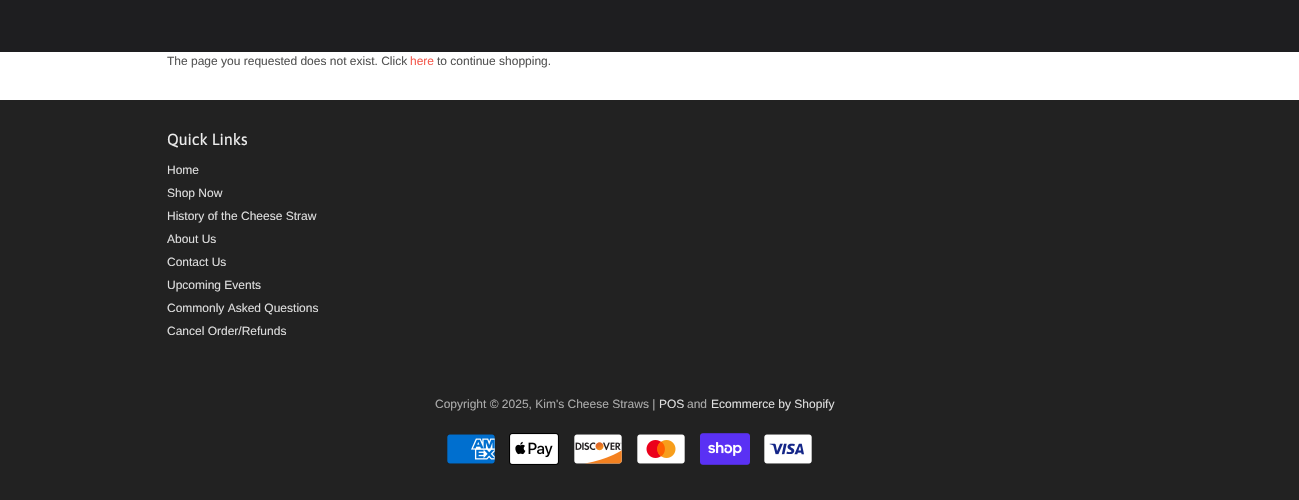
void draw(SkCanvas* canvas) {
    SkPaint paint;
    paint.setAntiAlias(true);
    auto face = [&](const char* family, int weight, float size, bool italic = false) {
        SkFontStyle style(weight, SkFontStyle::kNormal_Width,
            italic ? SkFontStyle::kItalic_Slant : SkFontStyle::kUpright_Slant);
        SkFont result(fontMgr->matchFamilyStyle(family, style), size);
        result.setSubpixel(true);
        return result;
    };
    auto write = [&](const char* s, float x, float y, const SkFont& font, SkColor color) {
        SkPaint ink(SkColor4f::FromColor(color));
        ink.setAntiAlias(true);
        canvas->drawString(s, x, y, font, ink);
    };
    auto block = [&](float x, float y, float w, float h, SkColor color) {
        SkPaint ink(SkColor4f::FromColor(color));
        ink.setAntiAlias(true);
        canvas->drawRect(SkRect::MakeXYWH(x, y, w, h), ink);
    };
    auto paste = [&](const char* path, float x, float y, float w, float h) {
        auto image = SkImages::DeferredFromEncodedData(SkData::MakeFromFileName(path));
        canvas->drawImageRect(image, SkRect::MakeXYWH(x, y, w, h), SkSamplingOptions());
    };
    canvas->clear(SK_ColorWHITE);
    block(0, 0, 1299, 52, SkColorSetRGB(30, 30, 32));
    auto kFont1 = face("Liberation Sans", 400, 12);
    write("The page you requested does not exist. Click", 167, 65, kFont1, SkColorSetRGB(85, 85, 85));
    write("here", 410, 65, kFont1, SkColorSetRGB(244, 91, 79));
    write("to continue shopping.", 437, 65, kFont1, SkColorSetRGB(85, 85, 85));
    block(0, 100, 1299, 400, SkColorSetRGB(34, 34, 34));
    auto kFont2 = face("Asap", 400, 16);
    write("Quick Links", 167, 145, kFont2, SkColorSetRGB(238, 238, 238));
    write("Home", 167, 174, kFont1, SkColorSetRGB(221, 221, 221));
    write("Shop Now", 167, 197, kFont1, SkColorSetRGB(221, 221, 221));
    write("History of the Cheese Straw", 167, 220, kFont1, SkColorSetRGB(221, 221, 221));
    write("About Us", 167, 243, kFont1, SkColorSetRGB(221, 221, 221));
    write("Contact Us", 167, 266, kFont1, SkColorSetRGB(221, 221, 221));
    write("Upcoming Events", 167, 289, kFont1, SkColorSetRGB(221, 221, 221));
    write("Commonly Asked Questions", 167, 312, kFont1, SkColorSetRGB(221, 221, 221));
    write("Cancel Order/Refunds", 167, 335, kFont1, SkColorSetRGB(221, 221, 221));
    write("Copyright © 2025, Kim's Cheese Straws |", 435, 408, kFont1, SkColorSetRGB(170, 170, 170));
    write("POS", 659, 408, kFont1, SkColorSetRGB(221, 221, 221));
    write("and", 687, 408, kFont1, SkColorSetRGB(170, 170, 170));
    write("Ecommerce by Shopify", 711, 408, kFont1, SkColorSetRGB(221, 221, 221));
    paste("pic1.png", 447, 434, 48, 30);
    paste("pic2.png", 509, 433, 50, 32);
    paste("pic3.png", 574, 434, 48, 30);
    paste("pic4.png", 637, 434, 48, 30);
    paste("pic5.png", 700, 433, 50, 32);
    paste("pic6.png", 764, 434, 48, 30);
}
